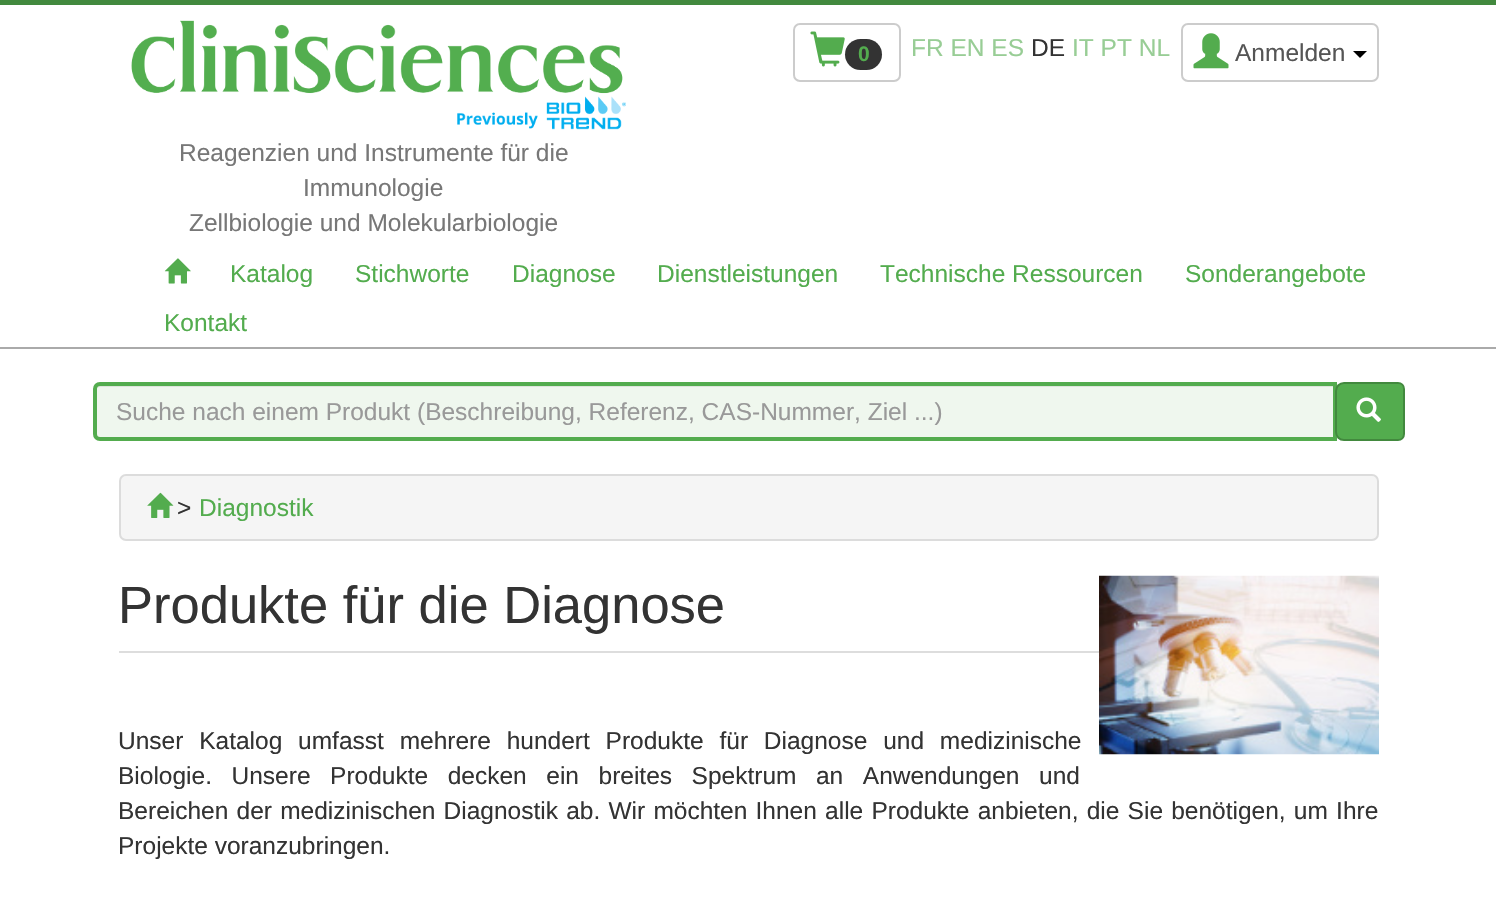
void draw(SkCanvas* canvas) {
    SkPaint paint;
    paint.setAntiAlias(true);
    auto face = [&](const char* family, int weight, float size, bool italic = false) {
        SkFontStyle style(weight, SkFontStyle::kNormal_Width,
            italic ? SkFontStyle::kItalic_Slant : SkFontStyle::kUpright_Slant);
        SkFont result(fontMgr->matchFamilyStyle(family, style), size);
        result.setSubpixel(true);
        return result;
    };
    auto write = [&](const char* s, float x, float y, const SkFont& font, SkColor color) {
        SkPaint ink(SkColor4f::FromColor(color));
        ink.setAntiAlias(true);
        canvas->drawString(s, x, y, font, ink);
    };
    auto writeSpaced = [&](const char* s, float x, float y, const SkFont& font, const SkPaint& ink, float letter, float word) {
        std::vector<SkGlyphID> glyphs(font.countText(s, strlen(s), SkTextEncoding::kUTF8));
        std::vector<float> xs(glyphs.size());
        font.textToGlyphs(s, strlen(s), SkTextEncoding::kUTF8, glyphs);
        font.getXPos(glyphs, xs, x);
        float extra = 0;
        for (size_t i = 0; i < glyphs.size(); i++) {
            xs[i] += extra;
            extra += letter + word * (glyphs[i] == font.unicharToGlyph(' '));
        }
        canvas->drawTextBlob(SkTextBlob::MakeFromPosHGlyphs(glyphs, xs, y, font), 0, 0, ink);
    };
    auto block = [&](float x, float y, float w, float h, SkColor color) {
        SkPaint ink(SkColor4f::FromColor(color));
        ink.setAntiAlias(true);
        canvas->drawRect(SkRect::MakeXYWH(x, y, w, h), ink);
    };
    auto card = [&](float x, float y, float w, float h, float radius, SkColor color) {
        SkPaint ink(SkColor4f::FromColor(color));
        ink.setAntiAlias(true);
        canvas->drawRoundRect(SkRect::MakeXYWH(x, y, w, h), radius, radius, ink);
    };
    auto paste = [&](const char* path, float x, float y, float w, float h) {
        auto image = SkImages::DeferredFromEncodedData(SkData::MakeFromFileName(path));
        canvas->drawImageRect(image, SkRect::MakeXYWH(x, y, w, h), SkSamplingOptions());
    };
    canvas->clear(SK_ColorWHITE);
    block(0, 0, 1496, 5, SkColorSetRGB(66, 137, 62));
    block(0, 347, 1496, 2, SkColorSetRGB(170, 170, 170));
    paint.setStyle(SkPaint::kStroke_Style);
    paint.setStrokeWidth(2);
    paint.setColor(SkColorSetRGB(204, 204, 204));
    canvas->drawRoundRect(SkRect::MakeXYWH(794, 24, 106, 57), 6, 6, paint);
    paste("pic1.png", 810, 31, 35, 36);
    card(845, 39, 37, 31, 15.5f, SkColorSetRGB(51, 51, 51));
    auto kFont1 = face("Liberation Sans", 700, 21);
    write("0", 858, 61, kFont1, SkColorSetRGB(83, 172, 78));
    auto kFont2 = face("Liberation Sans", 400, 24.5f);
    write("FR EN ES", 911, 56, kFont2, SkColorSetRGB(152, 205, 149));
    write("DE", 1031, 56, kFont2, SkColorSetRGB(51, 51, 51));
    write("IT PT NL", 1072, 56, kFont2, SkColorSetRGB(152, 205, 149));
    canvas->drawRoundRect(SkRect::MakeXYWH(1182, 24, 196, 57), 6, 6, paint);
    paste("pic2.png", 1193, 33, 36, 36);
    write("Anmelden", 1235, 61, kFont2, SkColorSetRGB(85, 85, 85));
    paint.setStyle(SkPaint::kFill_Style);
    paint.setColor(SK_ColorBLACK);
    canvas->drawPath(SkPathBuilder().moveTo(1353, 51).lineTo(1367, 51).lineTo(1360, 58).close().detach(), paint);
    paste("pic3.png", 131, 20, 495, 110);
    write("Reagenzien und Instrumente für die", 179, 161, kFont2, SkColorSetRGB(119, 119, 119));
    write("Immunologie", 303, 196, kFont2, SkColorSetRGB(119, 119, 119));
    write("Zellbiologie und Molekularbiologie", 189, 231, kFont2, SkColorSetRGB(119, 119, 119));
    paste("pic4.png", 164, 258, 27, 26);
    write("Katalog", 230, 282, kFont2, SkColorSetRGB(83, 172, 78));
    write("Stichworte", 355, 282, kFont2, SkColorSetRGB(83, 172, 78));
    write("Diagnose", 512, 282, kFont2, SkColorSetRGB(83, 172, 78));
    write("Dienstleistungen", 657, 282, kFont2, SkColorSetRGB(83, 172, 78));
    write("Technische Ressourcen", 880, 282, kFont2, SkColorSetRGB(83, 172, 78));
    write("Sonderangebote", 1185, 282, kFont2, SkColorSetRGB(83, 172, 78));
    write("Kontakt", 164, 331, kFont2, SkColorSetRGB(83, 172, 78));
    paint.setColor(SkColorSetRGB(239, 247, 238));
    canvas->drawPath(SkPathBuilder().moveTo(100, 382).lineTo(1337, 382).lineTo(1337, 441).lineTo(100, 441).cubicTo(96, 441, 93, 438, 93, 434).lineTo(93, 389).cubicTo(93, 385, 96, 382, 100, 382).close().detach(), paint);
    paint.setColor(SkColorSetRGB(221, 228, 220));
    canvas->drawPath(SkPathBuilder().moveTo(100, 387).lineTo(1334, 387).lineTo(1334, 385).lineTo(100, 385).cubicTo(97, 385, 96, 387, 96, 390).cubicTo(96, 388, 98, 387, 100, 387).close().detach(), paint);
    paint.setStyle(SkPaint::kStroke_Style);
    paint.setStrokeWidth(4);
    paint.setColor(SkColorSetRGB(83, 172, 78));
    canvas->drawPath(SkPathBuilder().moveTo(100, 384).lineTo(1335, 384).lineTo(1335, 439).lineTo(100, 439).cubicTo(97, 439, 95, 437, 95, 434).lineTo(95, 389).cubicTo(95, 386, 97, 384, 100, 384).close().detach(), paint);
    canvas->save();
    canvas->clipRect(SkRect::MakeXYWH(117, 397, 1196, 28));
    write("Suche nach einem Produkt (Beschreibung, Referenz, CAS-Nummer, Ziel ...)", 116, 420, kFont2, SkColorSetRGB(153, 153, 153));
    canvas->restore();
    paint.setStyle(SkPaint::kFill_Style);
    canvas->drawPath(SkPathBuilder().moveTo(1344, 383).lineTo(1398, 383).cubicTo(1401.5f, 383, 1404, 385.5f, 1404, 389).lineTo(1404, 434).cubicTo(1404, 437.5f, 1401.5f, 440, 1398, 440).lineTo(1344, 440).cubicTo(1339.5f, 440, 1336, 436.5f, 1336, 432).lineTo(1336, 391).cubicTo(1336, 386.5f, 1339.5f, 383, 1344, 383).close().detach(), paint);
    paint.setStyle(SkPaint::kStroke_Style);
    paint.setStrokeWidth(2);
    paint.setColor(SkColorSetRGB(66, 137, 62));
    canvas->drawPath(SkPathBuilder().moveTo(1344, 383).lineTo(1398, 383).cubicTo(1401.5f, 383, 1404, 385.5f, 1404, 389).lineTo(1404, 434).cubicTo(1404, 437.5f, 1401.5f, 440, 1398, 440).lineTo(1344, 440).cubicTo(1339.5f, 440, 1336, 436.5f, 1336, 432).lineTo(1336, 391).cubicTo(1336, 386.5f, 1339.5f, 383, 1344, 383).close().detach(), paint);
    paste("pic5.png", 1356, 397, 25, 25);
    paint.setStyle(SkPaint::kFill_Style);
    paint.setColor(SkColorSetRGB(245, 245, 245));
    canvas->drawRoundRect(SkRect::MakeXYWH(120, 475, 1258, 65), 6, 6, paint);
    paint.setStyle(SkPaint::kStroke_Style);
    paint.setColor(SkColorSetRGB(220, 220, 220));
    canvas->drawRoundRect(SkRect::MakeXYWH(120, 475, 1258, 65), 6, 6, paint);
    paste("pic6.png", 147, 492, 27, 26);
    write(">", 177, 516, kFont2, SkColorSetRGB(51, 51, 51));
    write("Diagnostik", 199, 516, kFont2, SkColorSetRGB(83, 172, 78));
    block(119, 651, 980, 2, SkColorSetRGB(221, 221, 221));
    auto kFont3 = face("Liberation Sans", 400, 52.5f);
    write("Produkte für die Diagnose", 118, 623, kFont3, SkColorSetRGB(51, 51, 51));
    paste("pic7.png", 1099, 575, 280, 180);
    paint.setStyle(SkPaint::kFill_Style);
    paint.setColor(SkColorSetRGB(51, 51, 51));
    writeSpaced("Unser Katalog umfasst mehrere hundert Produkte für Diagnose und medizinische", 118, 749, kFont2, paint, 0, 9);
    writeSpaced("Biologie. Unsere Produkte decken ein breites Spektrum an Anwendungen und", 118, 784, kFont2, paint, 0, 12.75f);
    writeSpaced("Bereichen der medizinischen Diagnostik ab. Wir möchten Ihnen alle Produkte anbieten, die Sie benötigen, um Ihre", 118, 819, kFont2, paint, 0, 1.4f);
    write("Projekte voranzubringen.", 118, 854, kFont2, SkColorSetRGB(51, 51, 51));
}
